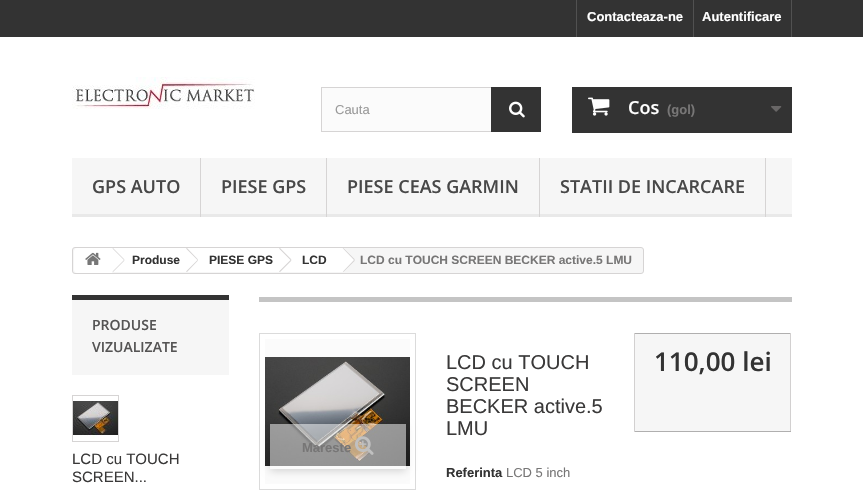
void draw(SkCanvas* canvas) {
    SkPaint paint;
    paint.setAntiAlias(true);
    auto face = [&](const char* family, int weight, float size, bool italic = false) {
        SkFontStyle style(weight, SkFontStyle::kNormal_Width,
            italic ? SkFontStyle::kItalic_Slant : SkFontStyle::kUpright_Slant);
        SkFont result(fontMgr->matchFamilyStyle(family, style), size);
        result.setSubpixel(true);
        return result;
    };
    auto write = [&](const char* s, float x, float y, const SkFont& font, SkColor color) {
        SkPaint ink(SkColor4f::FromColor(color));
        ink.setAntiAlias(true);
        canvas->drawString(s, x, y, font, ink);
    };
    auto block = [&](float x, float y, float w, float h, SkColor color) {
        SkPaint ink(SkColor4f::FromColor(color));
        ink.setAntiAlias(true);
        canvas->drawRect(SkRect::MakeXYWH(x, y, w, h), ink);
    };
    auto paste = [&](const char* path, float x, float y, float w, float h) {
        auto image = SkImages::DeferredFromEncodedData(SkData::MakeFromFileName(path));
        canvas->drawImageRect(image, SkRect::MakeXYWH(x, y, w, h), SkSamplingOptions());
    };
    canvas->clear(SK_ColorWHITE);
    block(0, 0, 863, 37, SkColorSetRGB(51, 51, 51));
    block(576, 0, 1, 37, SkColorSetRGB(81, 81, 81));
    auto kFont1 = face("Liberation Sans", 700, 13);
    write("Contacteaza-ne", 587, 21, kFont1, SK_ColorWHITE);
    block(791, 0, 1, 37, SkColorSetRGB(81, 81, 81));
    block(693, 0, 1, 37, SkColorSetRGB(81, 81, 81));
    write("Autentificare", 702, 21, kFont1, SK_ColorWHITE);
    paste("pic1.png", 72, 77, 183, 32);
    block(322, 88, 169, 43, SkColorSetRGB(251, 251, 251));
    paint.setStyle(SkPaint::kStroke_Style);
    paint.setStrokeWidth(1);
    paint.setColor(SkColorSetRGB(214, 212, 212));
    canvas->drawRect(SkRect::MakeXYWH(321.5f, 87.5f, 219, 44), paint);
    auto kFont2 = face("Liberation Sans", 400, 13);
    write("Cauta", 335, 114, kFont2, SkColorSetRGB(153, 153, 153));
    block(491, 87, 50, 45, SkColorSetRGB(51, 51, 51));
    paste("pic2.png", 509, 101, 16, 17);
    block(572, 87, 220, 46, SkColorSetRGB(51, 51, 51));
    paste("pic3.png", 588, 97, 22, 19);
    auto kFont3 = face("Open Sans", 600, 18);
    write("Cos", 628, 114, kFont3, SK_ColorWHITE);
    write("(gol)", 667, 114, kFont1, SkColorSetRGB(119, 118, 118));
    paste("pic4.png", 771, 106, 11, 6);
    block(72, 158, 720, 56, SkColorSetRGB(246, 246, 246));
    block(72, 214, 720, 3, SkColorSetRGB(233, 233, 233));
    block(200, 158, 1, 59, SkColorSetRGB(214, 212, 212));
    write("GPS AUTO", 92, 193, kFont3, SkColorSetRGB(72, 72, 72));
    block(326, 158, 1, 59, SkColorSetRGB(214, 212, 212));
    write("PIESE GPS", 221, 193, kFont3, SkColorSetRGB(72, 72, 72));
    block(539, 158, 1, 59, SkColorSetRGB(214, 212, 212));
    write("PIESE CEAS GARMIN", 347, 193, kFont3, SkColorSetRGB(72, 72, 72));
    block(765, 158, 1, 59, SkColorSetRGB(214, 212, 212));
    write("STATII DE INCARCARE", 560, 193, kFont3, SkColorSetRGB(72, 72, 72));
    paint.setStyle(SkPaint::kFill_Style);
    paint.setColor(SkColorSetRGB(246, 246, 246));
    canvas->drawRoundRect(SkRect::MakeXYWH(72.5f, 247.5f, 571, 26), 2.5f, 2.5f, paint);
    paint.setStyle(SkPaint::kStroke_Style);
    paint.setColor(SkColorSetRGB(214, 212, 212));
    canvas->drawRoundRect(SkRect::MakeXYWH(72.5f, 247.5f, 571, 26), 2.5f, 2.5f, paint);
    paint.setStyle(SkPaint::kFill_Style);
    paint.setColor(SK_ColorWHITE);
    canvas->drawPath(SkPathBuilder().moveTo(77, 248).lineTo(112, 248).lineTo(112, 273).lineTo(77, 273).cubicTo(75.5f, 273, 74, 271.5f, 74, 270).lineTo(74, 251).cubicTo(74, 249.5f, 75.5f, 248, 77, 248).close().detach(), paint);
    paste("pic5.png", 85, 252, 16, 13);
    block(112, 248, 75, 24, SK_ColorWHITE);
    paint.setColor(SkColorSetRGB(214, 212, 212));
    canvas->drawPath(SkPathBuilder().moveTo(113, 248).lineTo(124.5f, 259.5f).lineTo(124, 260).lineTo(112.5f, 248.5f).close().moveTo(124, 260).lineTo(124.5f, 260.5f).lineTo(113, 272).lineTo(112.5f, 271.5f).close().detach(), paint);
    auto kFont4 = face("Liberation Sans", 700, 12);
    write("Produse", 132, 264, kFont4, SkColorSetRGB(51, 51, 51));
    paint.setColor(SK_ColorWHITE);
    canvas->drawPath(SkPathBuilder().moveTo(197.5f, 248.5f).lineTo(207.5f, 258.5f).cubicTo(208.5f, 259.5f, 208.5f, 260.5f, 207.5f, 261.5f).lineTo(197.5f, 271.5f).cubicTo(197, 272, 195.5f, 272, 195, 271.5f).lineTo(185, 261.5f).cubicTo(184, 260.5f, 184, 259.5f, 185, 258.5f).lineTo(195, 248.5f).cubicTo(195.5f, 248, 197, 248, 197.5f, 248.5f).close().detach(), paint);
    block(187, 248, 93, 24, SK_ColorWHITE);
    paint.setColor(SkColorSetRGB(214, 212, 212));
    canvas->drawPath(SkPathBuilder().moveTo(187, 248).lineTo(198, 259.5f).lineTo(197.5f, 260).lineTo(186, 248.5f).close().moveTo(197.5f, 260).lineTo(198, 260.5f).lineTo(187, 272).lineTo(186, 271.5f).close().detach(), paint);
    write("PIESE GPS", 209, 264, kFont4, SkColorSetRGB(51, 51, 51));
    paint.setColor(SK_ColorWHITE);
    canvas->drawPath(SkPathBuilder().moveTo(290.5f, 248.5f).lineTo(300.5f, 258.5f).cubicTo(301.5f, 259.5f, 301.5f, 260.5f, 300.5f, 261.5f).lineTo(290.5f, 271.5f).cubicTo(290, 272, 288.5f, 272, 288, 271.5f).lineTo(278, 261.5f).cubicTo(277, 260.5f, 277, 259.5f, 278, 258.5f).lineTo(288, 248.5f).cubicTo(288.5f, 248, 290, 248, 290.5f, 248.5f).close().detach(), paint);
    block(280, 248, 62, 24, SK_ColorWHITE);
    paint.setColor(SkColorSetRGB(214, 212, 212));
    canvas->drawPath(SkPathBuilder().moveTo(280, 248).lineTo(291.5f, 259.5f).lineTo(290.5f, 260).lineTo(279, 248.5f).close().moveTo(290.5f, 260).lineTo(291.5f, 260.5f).lineTo(280, 272).lineTo(279, 271.5f).close().detach(), paint);
    write("LCD", 302, 264, kFont4, SkColorSetRGB(51, 51, 51));
    paint.setColor(SK_ColorWHITE);
    canvas->drawPath(SkPathBuilder().moveTo(344.5f, 248.5f).lineTo(354, 258.5f).cubicTo(355, 259.5f, 355, 260.5f, 354, 261.5f).lineTo(344.5f, 271.5f).cubicTo(343.5f, 272, 342.5f, 272, 341.5f, 271.5f).lineTo(331.5f, 261.5f).cubicTo(331, 260.5f, 331, 259.5f, 331.5f, 258.5f).lineTo(341.5f, 248.5f).cubicTo(342.5f, 248, 343.5f, 248, 344.5f, 248.5f).close().detach(), paint);
    paint.setColor(SkColorSetRGB(214, 212, 212));
    canvas->drawPath(SkPathBuilder().moveTo(343.5f, 248).lineTo(355, 259.5f).lineTo(354, 260).lineTo(343, 248.5f).close().moveTo(354, 260).lineTo(355, 260.5f).lineTo(343.5f, 272).lineTo(343, 271.5f).close().detach(), paint);
    write("LCD cu TOUCH SCREEN BECKER active.5 LMU", 360, 264, kFont4, SkColorSetRGB(119, 118, 118));
    block(72, 300, 157, 75, SkColorSetRGB(246, 246, 246));
    block(72, 295, 157, 5, SkColorSetRGB(51, 51, 51));
    auto kFont5 = face("Open Sans", 600, 14);
    write("PRODUSE", 92, 330, kFont5, SkColorSetRGB(85, 84, 84));
    write("VIZUALIZATE", 92, 352, kFont5, SkColorSetRGB(85, 84, 84));
    paint.setStyle(SkPaint::kStroke_Style);
    canvas->drawRect(SkRect::MakeXYWH(72.5f, 395.5f, 46, 46), paint);
    paste("pic6.png", 73, 401, 45, 38);
    auto kFont6 = face("Liberation Sans", 400, 15);
    write("LCD cu TOUCH", 72, 464, kFont6, SkColorSetRGB(58, 57, 57));
    write("SCREEN...", 72, 482, kFont6, SkColorSetRGB(58, 57, 57));
    block(259, 297, 533, 5, SkColorSetRGB(196, 196, 196));
    paint.setColor(SkColorSetRGB(219, 219, 219));
    canvas->drawRect(SkRect::MakeXYWH(259.5f, 333.5f, 156, 156), paint);
    block(265, 339, 145, 145, SkColorSetRGB(251, 251, 251));
    paste("pic7.png", 265, 357, 145, 109);
    canvas->save();
    canvas->clipPath(SkPathBuilder(SkPathFillType::kEvenOdd).moveTo(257, 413).lineTo(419, 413).lineTo(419, 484).lineTo(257, 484).close().moveTo(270, 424).lineTo(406, 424).lineTo(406, 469).lineTo(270, 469).close().detach(), true);
    paint.setStyle(SkPaint::kFill_Style);
    paint.setColor(SkColorSetARGB(41, 0, 0, 0));
    paint.setMaskFilter(SkMaskFilter::MakeBlur(kNormal_SkBlurStyle, 4));
    canvas->drawRect(SkRect::MakeXYWH(270, 426, 136, 45), paint);
    paint.setMaskFilter(nullptr);
    canvas->restore();
    block(270, 424, 136, 42, SkColorSetARGB(128, 255, 255, 255));
    write("Mareste", 302, 452, kFont1, SkColorSetRGB(119, 118, 118));
    paste("pic8.png", 355, 436, 19, 19);
    auto kFont7 = face("Liberation Sans", 400, 20);
    write("LCD cu TOUCH", 446, 369, kFont7, SkColorSetRGB(58, 57, 57));
    write("SCREEN", 446, 391, kFont7, SkColorSetRGB(58, 57, 57));
    write("BECKER active.5", 446, 413, kFont7, SkColorSetRGB(58, 57, 57));
    write("LMU", 446, 435, kFont7, SkColorSetRGB(58, 57, 57));
    write("Referinta", 446, 477, kFont1, SkColorSetRGB(51, 51, 51));
    write("LCD 5 inch", 506, 477, kFont2, SkColorSetRGB(119, 118, 118));
    block(635, 334, 155, 97, SkColorSetRGB(246, 246, 246));
    block(634, 333, 157, 1, SkColorSetRGB(176, 175, 175));
    block(790, 333, 1, 99, SkColorSetRGB(210, 208, 208));
    block(634, 431, 157, 1, SkColorSetRGB(176, 175, 175));
    block(634, 333, 1, 99, SkColorSetRGB(210, 208, 208));
    auto kFont8 = face("Open Sans", 600, 26);
    write("110,00 lei", 654, 371, kFont8, SkColorSetRGB(51, 51, 51));
}
